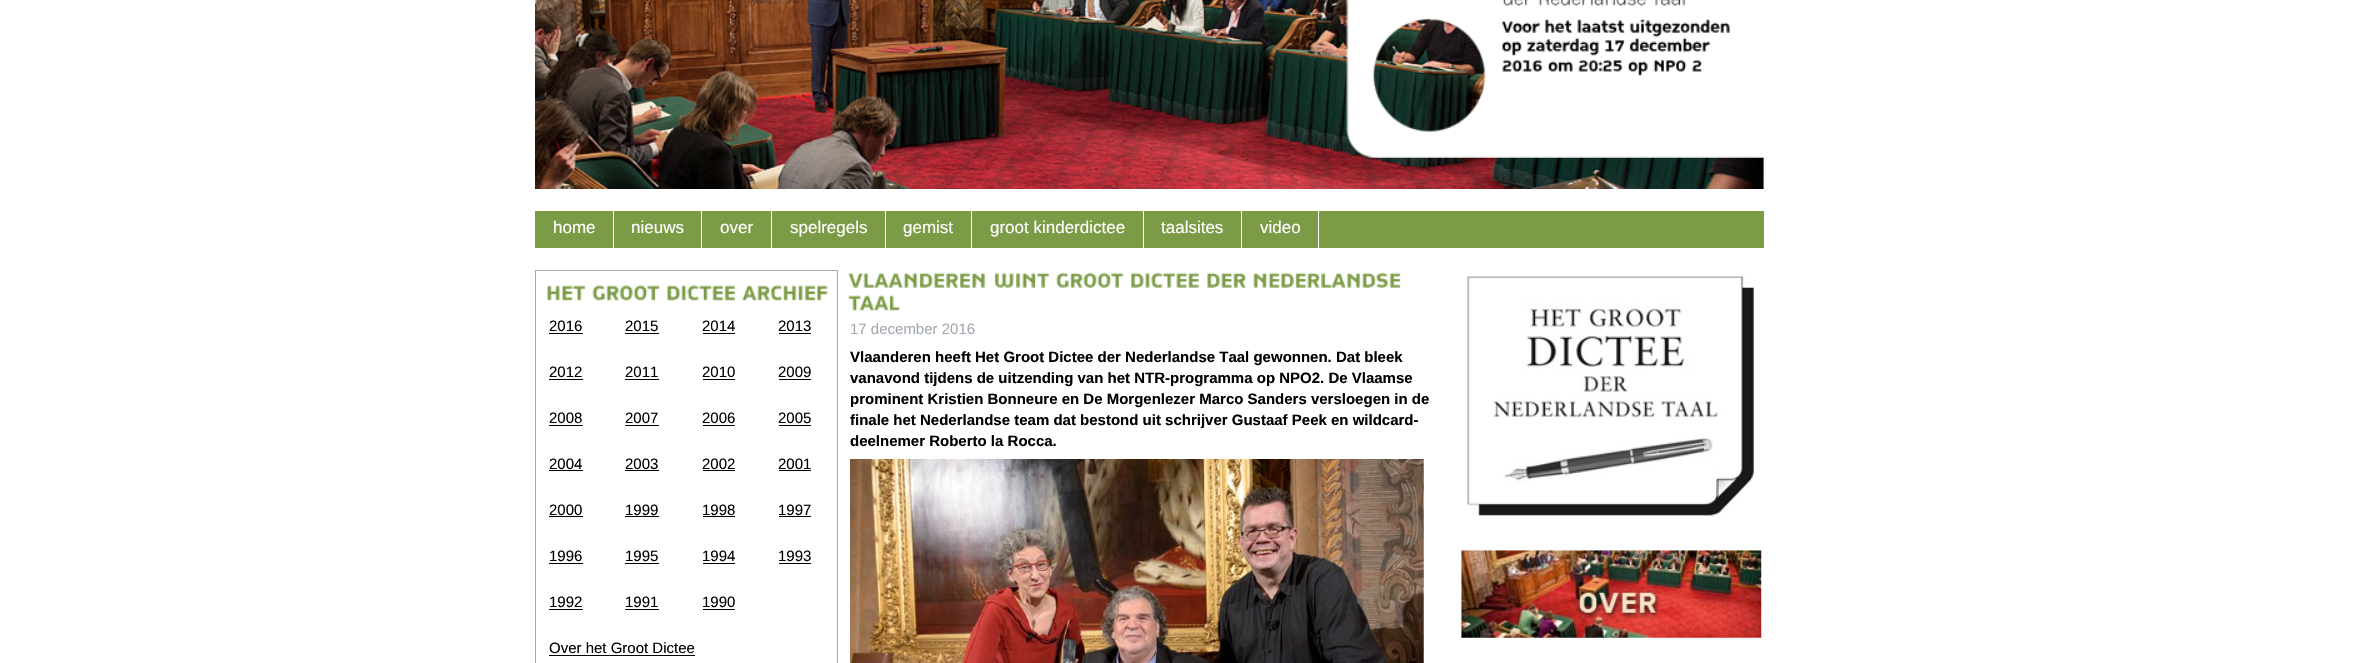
void draw(SkCanvas* canvas) {
    SkPaint paint;
    paint.setAntiAlias(true);
    auto face = [&](const char* family, int weight, float size, bool italic = false) {
        SkFontStyle style(weight, SkFontStyle::kNormal_Width,
            italic ? SkFontStyle::kItalic_Slant : SkFontStyle::kUpright_Slant);
        SkFont result(fontMgr->matchFamilyStyle(family, style), size);
        result.setSubpixel(true);
        return result;
    };
    auto write = [&](const char* s, float x, float y, const SkFont& font, SkColor color) {
        SkPaint ink(SkColor4f::FromColor(color));
        ink.setAntiAlias(true);
        canvas->drawString(s, x, y, font, ink);
    };
    auto block = [&](float x, float y, float w, float h, SkColor color) {
        SkPaint ink(SkColor4f::FromColor(color));
        ink.setAntiAlias(true);
        canvas->drawRect(SkRect::MakeXYWH(x, y, w, h), ink);
    };
    auto paste = [&](const char* path, float x, float y, float w, float h) {
        auto image = SkImages::DeferredFromEncodedData(SkData::MakeFromFileName(path));
        canvas->drawImageRect(image, SkRect::MakeXYWH(x, y, w, h), SkSamplingOptions());
    };
    canvas->clear(SK_ColorWHITE);
    block(1763, 156, 1, 33, SkColorSetRGB(232, 232, 232));
    paste("pic1.png", 535, 0, 1229, 189);
    paste("pic2.png", 1346, 0, 418, 158);
    paste("pic3.png", 1503, 0, 25, 6);
    paste("pic4.png", 1538, 0, 109, 6);
    paste("pic5.png", 1655, 0, 31, 6);
    paste("pic6.png", 1502, 21, 39, 12);
    paste("pic7.png", 1544, 19, 29, 14);
    paste("pic8.png", 1577, 19, 48, 14);
    paste("pic9.png", 1629, 19, 102, 18);
    paste("pic10.png", 1502, 41, 20, 15);
    paste("pic11.png", 1527, 37, 72, 19);
    paste("pic12.png", 1604, 40, 21, 12);
    paste("pic13.png", 1629, 37, 82, 15);
    paste("pic14.png", 1502, 60, 41, 12);
    paste("pic15.png", 1548, 61, 25, 11);
    paste("pic16.png", 1578, 60, 45, 12);
    paste("pic17.png", 1628, 61, 20, 15);
    paste("pic18.png", 1653, 60, 34, 12);
    paste("pic19.png", 1692, 60, 10, 12);
    block(535, 211, 1229, 37, SkColorSetRGB(123, 155, 70));
    block(613, 211, 1, 37, SK_ColorWHITE);
    auto kFont1 = face("Liberation Sans", 400, 17);
    write("home", 553, 233, kFont1, SK_ColorWHITE);
    block(701, 211, 1, 37, SK_ColorWHITE);
    write("nieuws", 631, 233, kFont1, SK_ColorWHITE);
    block(771, 211, 1, 37, SK_ColorWHITE);
    write("over", 720, 233, kFont1, SK_ColorWHITE);
    block(885, 211, 1, 37, SK_ColorWHITE);
    write("spelregels", 790, 233, kFont1, SK_ColorWHITE);
    block(971, 211, 1, 37, SK_ColorWHITE);
    write("gemist", 903, 233, kFont1, SK_ColorWHITE);
    block(1143, 211, 1, 37, SK_ColorWHITE);
    write("groot kinderdictee", 990, 233, kFont1, SK_ColorWHITE);
    block(1241, 211, 1, 37, SK_ColorWHITE);
    write("taalsites", 1161, 233, kFont1, SK_ColorWHITE);
    block(1318, 211, 1, 37, SK_ColorWHITE);
    write("video", 1260, 233, kFont1, SK_ColorWHITE);
    paint.setStyle(SkPaint::kStroke_Style);
    paint.setStrokeWidth(1);
    paint.setColor(SkColorSetRGB(162, 169, 175));
    canvas->drawRect(SkRect::MakeXYWH(535.5f, 270.5f, 302, 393), paint);
    paste("pic20.png", 547, 285, 39, 16);
    paste("pic21.png", 592, 285, 69, 16);
    paste("pic22.png", 667, 285, 69, 16);
    paste("pic23.png", 742, 285, 86, 16);
    auto kFont2 = face("Liberation Sans", 400, 15);
    write("2016", 549, 331, kFont2, SK_ColorBLACK);
    block(549, 333, 34, 1, SK_ColorBLACK);
    write("2015", 625, 331, kFont2, SK_ColorBLACK);
    block(625, 333, 34, 1, SK_ColorBLACK);
    write("2014", 702, 331, kFont2, SK_ColorBLACK);
    block(703, 333, 32, 1, SK_ColorBLACK);
    write("2013", 778, 331, kFont2, SK_ColorBLACK);
    block(779, 333, 32, 1, SK_ColorBLACK);
    write("2012", 549, 377, kFont2, SK_ColorBLACK);
    block(549, 379, 34, 1, SK_ColorBLACK);
    write("2011", 625, 377, kFont2, SK_ColorBLACK);
    block(625, 379, 34, 1, SK_ColorBLACK);
    write("2010", 702, 377, kFont2, SK_ColorBLACK);
    block(703, 379, 32, 1, SK_ColorBLACK);
    write("2009", 778, 377, kFont2, SK_ColorBLACK);
    block(779, 379, 32, 1, SK_ColorBLACK);
    write("2008", 549, 423, kFont2, SK_ColorBLACK);
    block(549, 425, 34, 1, SK_ColorBLACK);
    write("2007", 625, 423, kFont2, SK_ColorBLACK);
    block(625, 425, 34, 1, SK_ColorBLACK);
    write("2006", 702, 423, kFont2, SK_ColorBLACK);
    block(703, 425, 32, 1, SK_ColorBLACK);
    write("2005", 778, 423, kFont2, SK_ColorBLACK);
    block(779, 425, 32, 1, SK_ColorBLACK);
    write("2004", 549, 469, kFont2, SK_ColorBLACK);
    block(549, 470, 34, 1, SK_ColorBLACK);
    write("2003", 625, 469, kFont2, SK_ColorBLACK);
    block(625, 470, 34, 1, SK_ColorBLACK);
    write("2002", 702, 469, kFont2, SK_ColorBLACK);
    block(703, 470, 32, 1, SK_ColorBLACK);
    write("2001", 778, 469, kFont2, SK_ColorBLACK);
    block(779, 470, 32, 1, SK_ColorBLACK);
    write("2000", 549, 515, kFont2, SK_ColorBLACK);
    block(549, 516, 34, 1, SK_ColorBLACK);
    write("1999", 625, 515, kFont2, SK_ColorBLACK);
    block(625, 516, 34, 1, SK_ColorBLACK);
    write("1998", 702, 515, kFont2, SK_ColorBLACK);
    block(703, 516, 32, 1, SK_ColorBLACK);
    write("1997", 778, 515, kFont2, SK_ColorBLACK);
    block(779, 516, 32, 1, SK_ColorBLACK);
    write("1996", 549, 561, kFont2, SK_ColorBLACK);
    block(549, 563, 34, 1, SK_ColorBLACK);
    write("1995", 625, 561, kFont2, SK_ColorBLACK);
    block(625, 563, 34, 1, SK_ColorBLACK);
    write("1994", 702, 561, kFont2, SK_ColorBLACK);
    block(703, 563, 32, 1, SK_ColorBLACK);
    write("1993", 778, 561, kFont2, SK_ColorBLACK);
    block(779, 563, 32, 1, SK_ColorBLACK);
    write("1992", 549, 607, kFont2, SK_ColorBLACK);
    block(549, 609, 34, 1, SK_ColorBLACK);
    write("1991", 625, 607, kFont2, SK_ColorBLACK);
    block(625, 609, 34, 1, SK_ColorBLACK);
    write("1990", 702, 607, kFont2, SK_ColorBLACK);
    block(703, 609, 32, 1, SK_ColorBLACK);
    write("Over het Groot Dictee", 549, 653, kFont2, SK_ColorBLACK);
    block(549, 655, 146, 1, SK_ColorBLACK);
    paste("pic24.png", 848, 272, 138, 16);
    paste("pic25.png", 994, 272, 56, 16);
    paste("pic26.png", 1056, 272, 68, 16);
    paste("pic27.png", 1131, 272, 68, 16);
    paste("pic28.png", 1207, 272, 40, 16);
    paste("pic29.png", 1253, 272, 148, 16);
    paste("pic30.png", 848, 295, 53, 16);
    write("17 december 2016", 850, 334, kFont2, SkColorSetRGB(162, 169, 175));
    auto kFont3 = face("Liberation Sans", 700, 15);
    write("Vlaanderen heeft Het Groot Dictee der Nederlandse Taal gewonnen. Dat bleek", 850, 362, kFont3, SK_ColorBLACK);
    write("vanavond tijdens de uitzending van het NTR-programma op NPO2. De Vlaamse", 850, 383, kFont3, SK_ColorBLACK);
    write("prominent Kristien Bonneure en De Morgenlezer Marco Sanders versloegen in de", 850, 404, kFont3, SK_ColorBLACK);
    write("finale het Nederlandse team dat bestond uit schrijver Gustaaf Peek en wildcard-", 850, 425, kFont3, SK_ColorBLACK);
    write("deelnemer Roberto la Rocca.", 850, 446, kFont3, SK_ColorBLACK);
    paste("pic31.png", 850, 459, 574, 204);
    paste("pic32.png", 1467, 276, 287, 240);
    paste("pic33.png", 1461, 550, 301, 88);
}
